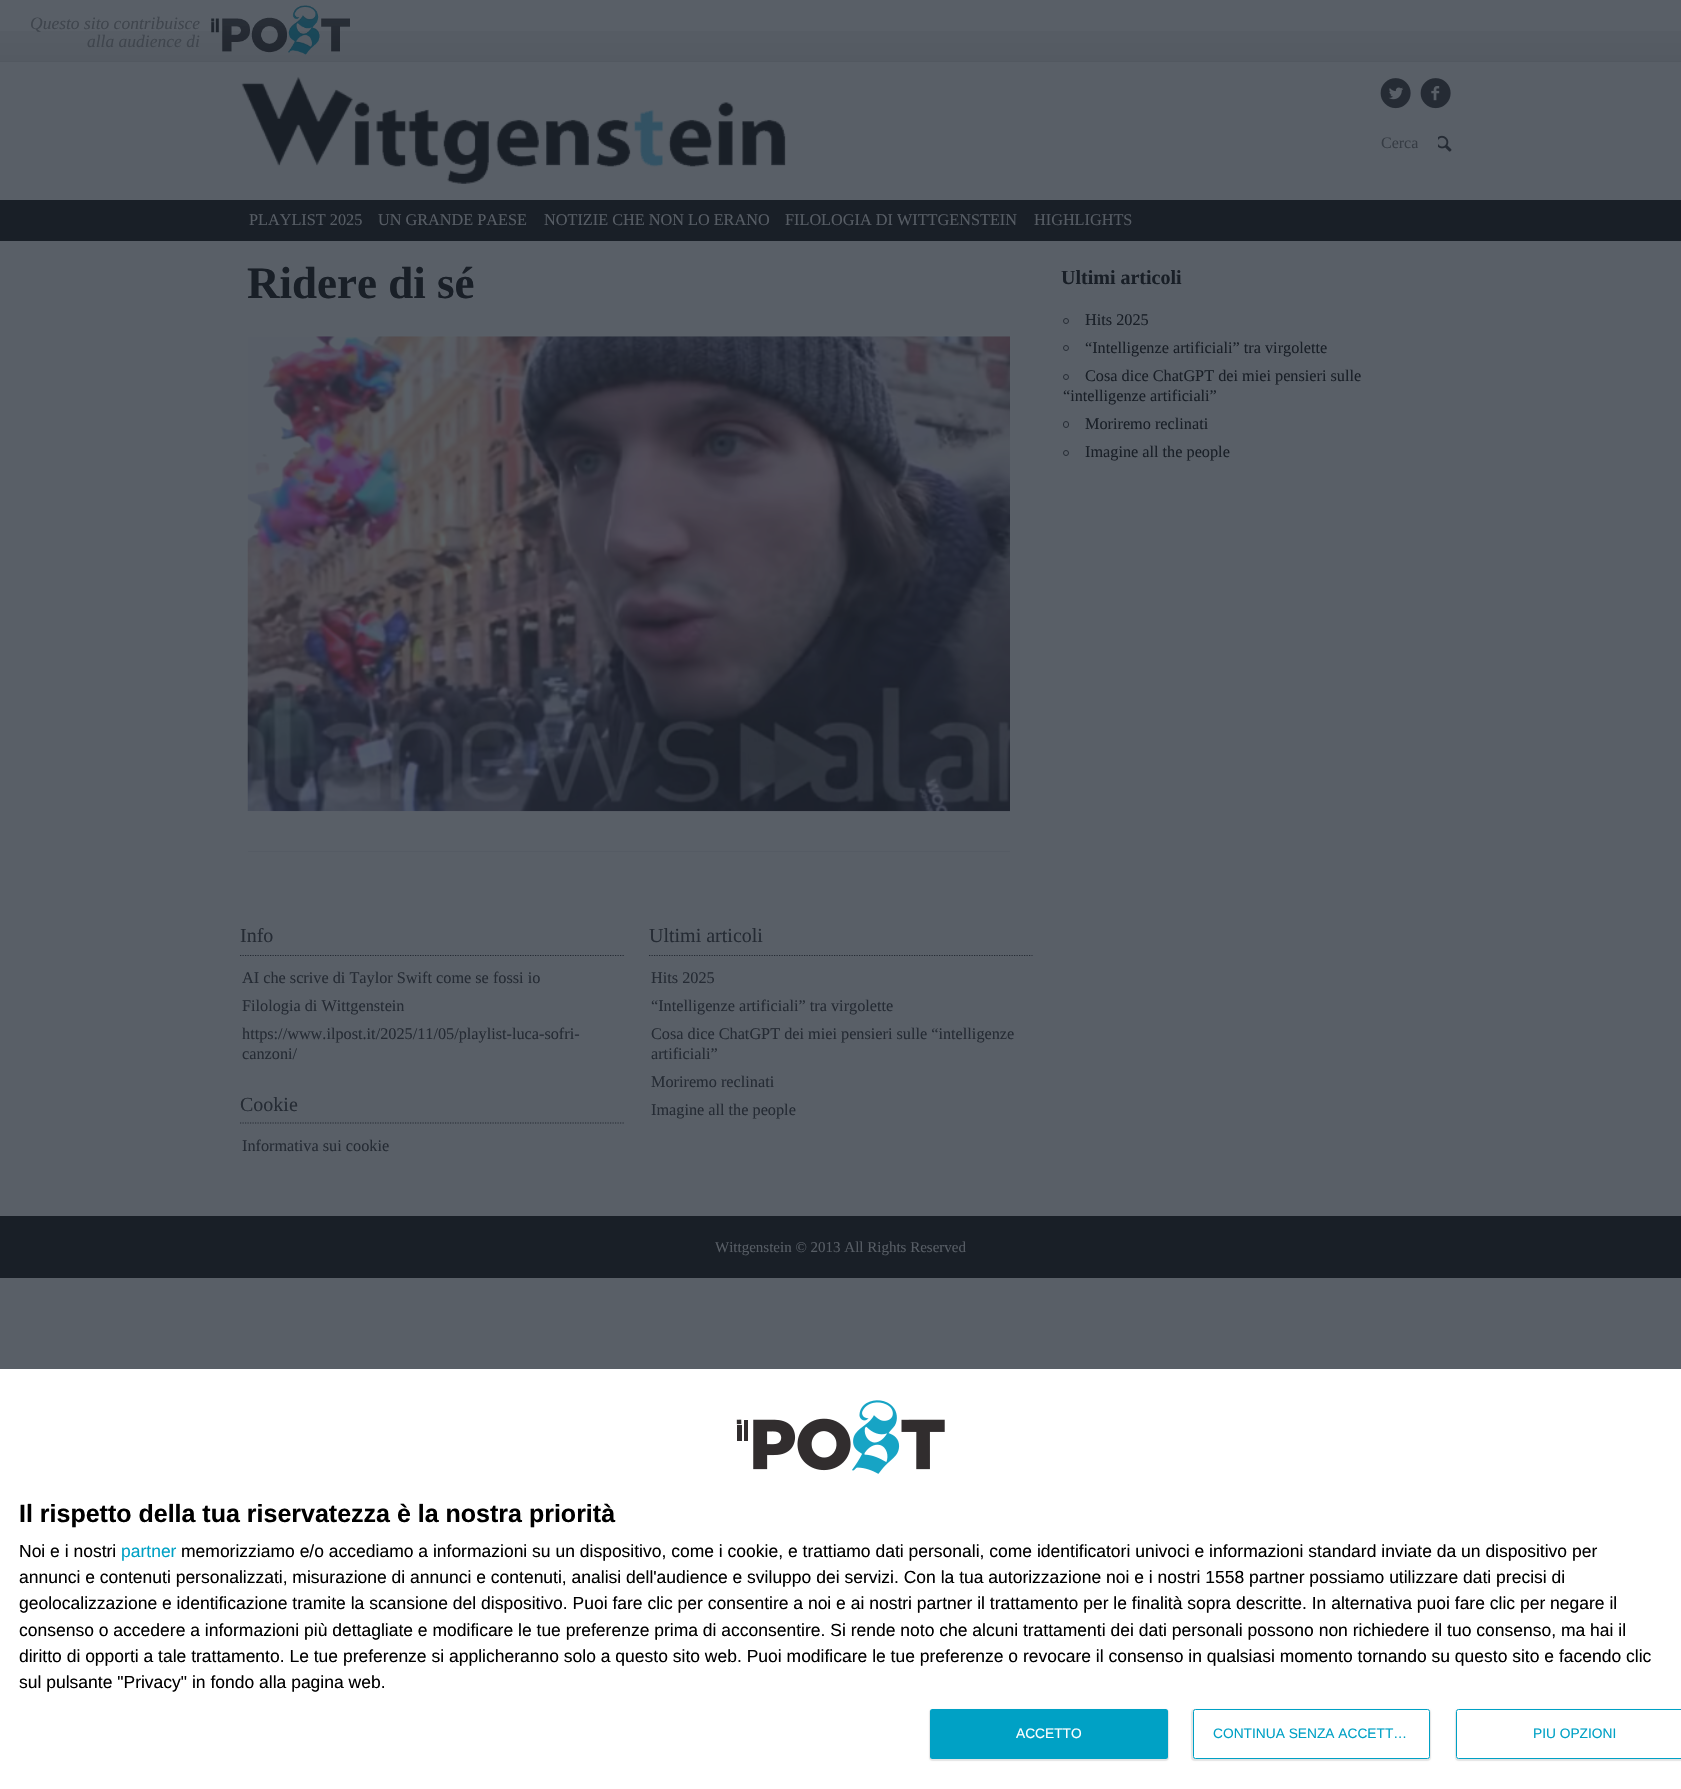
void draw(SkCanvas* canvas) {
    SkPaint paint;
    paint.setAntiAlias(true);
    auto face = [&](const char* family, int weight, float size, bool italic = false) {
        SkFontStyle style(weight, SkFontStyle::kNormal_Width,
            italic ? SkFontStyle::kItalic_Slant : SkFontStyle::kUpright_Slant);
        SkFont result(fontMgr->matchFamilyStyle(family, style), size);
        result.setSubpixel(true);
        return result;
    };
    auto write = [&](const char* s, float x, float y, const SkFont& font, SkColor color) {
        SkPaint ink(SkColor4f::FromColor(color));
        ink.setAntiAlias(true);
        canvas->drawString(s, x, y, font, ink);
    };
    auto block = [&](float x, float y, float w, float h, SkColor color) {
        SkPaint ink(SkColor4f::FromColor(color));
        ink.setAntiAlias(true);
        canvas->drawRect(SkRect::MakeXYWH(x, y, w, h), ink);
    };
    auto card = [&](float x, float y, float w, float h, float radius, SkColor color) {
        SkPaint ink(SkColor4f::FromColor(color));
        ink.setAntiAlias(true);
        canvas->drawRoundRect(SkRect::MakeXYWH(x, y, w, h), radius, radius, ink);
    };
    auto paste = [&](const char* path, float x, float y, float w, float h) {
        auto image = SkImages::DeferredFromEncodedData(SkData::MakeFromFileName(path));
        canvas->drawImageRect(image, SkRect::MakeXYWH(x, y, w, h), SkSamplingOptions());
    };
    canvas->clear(SkColorSetRGB(89, 95, 103));
    {
        const SkColor colors[] = {SkColorSetRGB(89, 95, 103), SkColorSetRGB(84, 90, 98)};
        const float stops[] = {0, 1};
        const SkPoint ends[] = {{841, 0}, {841, 61}};
        paint.setShader(SkGradientShader::MakeLinear(ends, colors, stops, 2, SkTileMode::kClamp));
        paint.setAlpha(255);
    }
    canvas->drawRect(SkRect::MakeXYWH(0, 31, 1681, 30), paint);
    block(0, 61, 1681, 1, SkColorSetRGB(82, 88, 96));
    auto kFont1 = face("Liberation Serif", 400, 17.5f, true);
    write("Questo sito contribuisce", 30, 29, kFont1, SkColorSetRGB(63, 69, 77));
    write("alla audience di", 87, 47, kFont1, SkColorSetRGB(63, 69, 77));
    paste("pic1.png", 211, 5, 139, 50);
    paste("pic2.png", 241, 76, 545, 108);
    paste("pic3.png", 1380, 78, 31, 31);
    paste("pic4.png", 1420, 78, 31, 31);
    auto kFont2 = face("Liberation Serif", 400, 16);
    write("Cerca", 1381, 148, kFont2, SkColorSetRGB(54, 60, 68));
    paste("pic5.png", 1438, 135, 14, 17);
    block(0, 200, 1681, 41, SkColorSetRGB(25, 31, 39));
    auto kFont3 = face("Liberation Serif", 400, 16.25f);
    write("PLAYLIST 2025", 249, 225, kFont3, SkColorSetRGB(86, 92, 100));
    write("UN GRANDE PAESE", 378, 225, kFont3, SkColorSetRGB(86, 92, 100));
    write("NOTIZIE CHE NON LO ERANO", 544, 225, kFont3, SkColorSetRGB(86, 92, 100));
    write("FILOLOGIA DI WITTGENSTEIN", 785, 225, kFont3, SkColorSetRGB(86, 92, 100));
    write("HIGHLIGHTS", 1034, 225, kFont3, SkColorSetRGB(86, 92, 100));
    block(248, 851, 762, 1, SkColorSetRGB(85, 91, 100));
    auto kFont4 = face("Liberation Serif", 700, 45);
    write("Ridere di sé", 247, 298, kFont4, SkColorSetRGB(25, 31, 39));
    paste("pic6.png", 247, 336, 763, 476);
    auto kFont5 = face("Liberation Serif", 700, 20);
    write("Ultimi articoli", 1061, 284, kFont5, SkColorSetRGB(25, 31, 39));
    paint.setStyle(SkPaint::kStroke_Style);
    paint.setStrokeWidth(1);
    paint.setShader(nullptr);
    paint.setColor(SkColorSetRGB(37, 43, 52));
    canvas->drawCircle(1066, 321, 2.5f, paint);
    write("Hits 2025", 1085, 325, kFont3, SkColorSetRGB(25, 31, 39));
    canvas->drawCircle(1066, 348, 2.5f, paint);
    write("“Intelligenze artificiali” tra virgolette", 1085, 353, kFont3, SkColorSetRGB(25, 31, 39));
    canvas->drawCircle(1066, 377, 2.5f, paint);
    write("Cosa dice ChatGPT dei miei pensieri sulle", 1085, 381, kFont3, SkColorSetRGB(25, 31, 39));
    write("“intelligenze artificiali”", 1063, 401, kFont3, SkColorSetRGB(25, 31, 39));
    canvas->drawRoundRect(SkRect::MakeXYWH(1063.5f, 421.5f, 5, 6), 2.5f, 2.5f, paint);
    write("Moriremo reclinati", 1085, 429, kFont3, SkColorSetRGB(25, 31, 39));
    canvas->drawCircle(1066, 453, 2.5f, paint);
    write("Imagine all the people", 1085, 457, kFont3, SkColorSetRGB(25, 31, 39));
    block(0, 1216, 1681, 62, SkColorSetRGB(25, 31, 39));
    paint.setStrokeWidth(1.2f);
    paint.setPathEffect(SkDashPathEffect::Make({{1.25f, 1.25f}}, 0));
    canvas->drawPath(SkPathBuilder().moveTo(240, 955.5f).lineTo(624, 955.5f).detach(), paint);
    paint.setPathEffect(nullptr);
    auto kFont6 = face("Liberation Serif", 400, 20);
    write("Info", 240, 942, kFont6, SkColorSetRGB(37, 43, 52));
    write("AI che scrive di Taylor Swift come se fossi io", 242, 983, kFont3, SkColorSetRGB(37, 43, 52));
    write("Filologia di Wittgenstein", 242, 1011, kFont3, SkColorSetRGB(37, 43, 52));
    write("https://www.ilpost.it/2025/11/05/playlist-luca-sofri-", 242, 1039, kFont3, SkColorSetRGB(37, 43, 52));
    write("canzoni/", 242, 1059, kFont3, SkColorSetRGB(37, 43, 52));
    paint.setPathEffect(SkDashPathEffect::Make({{1.25f, 1.25f}}, 0));
    canvas->drawPath(SkPathBuilder().moveTo(240, 1123).lineTo(624, 1123).detach(), paint);
    paint.setPathEffect(nullptr);
    write("Cookie", 240, 1111, kFont6, SkColorSetRGB(37, 43, 52));
    write("Informativa sui cookie", 242, 1151, kFont3, SkColorSetRGB(37, 43, 52));
    paint.setPathEffect(SkDashPathEffect::Make({{1.25f, 1.25f}}, 0));
    canvas->drawPath(SkPathBuilder().moveTo(649, 955.5f).lineTo(1032.5f, 955.5f).detach(), paint);
    paint.setPathEffect(nullptr);
    write("Ultimi articoli", 649, 942, kFont6, SkColorSetRGB(37, 43, 52));
    write("Hits 2025", 651, 983, kFont3, SkColorSetRGB(37, 43, 52));
    write("“Intelligenze artificiali” tra virgolette", 651, 1011, kFont3, SkColorSetRGB(37, 43, 52));
    write("Cosa dice ChatGPT dei miei pensieri sulle “intelligenze", 651, 1039, kFont3, SkColorSetRGB(37, 43, 52));
    write("artificiali”", 651, 1059, kFont3, SkColorSetRGB(37, 43, 52));
    write("Moriremo reclinati", 651, 1087, kFont3, SkColorSetRGB(37, 43, 52));
    write("Imagine all the people", 651, 1115, kFont3, SkColorSetRGB(37, 43, 52));
    auto kFont7 = face("Liberation Serif", 400, 15);
    write("Wittgenstein © 2013 All Rights Reserved", 715, 1252, kFont7, SkColorSetRGB(86, 92, 100));
    block(0, 1369, 1681, 420, SK_ColorWHITE);
    paste("pic7.png", 736, 1400, 209, 74);
    auto kFont8 = face("Liberation Sans", 700, 25);
    write("Il rispetto della tua riservatezza è la nostra priorità", 19, 1522, kFont8, SK_ColorBLACK);
    auto kFont9 = face("Liberation Sans", 400, 17.5f);
    write("Noi e i nostri", 19, 1557, kFont9, SK_ColorBLACK);
    write("partner", 121, 1557, kFont9, SkColorSetRGB(0, 161, 197));
    write("memorizziamo e/o accediamo a informazioni su un dispositivo, come i cookie, e trattiamo dati personali, come identificatori univoci e informazioni standard inviate da un dispositivo per", 181, 1557, kFont9, SK_ColorBLACK);
    write("annunci e contenuti personalizzati, misurazione di annunci e contenuti, analisi dell'audience e sviluppo dei servizi. Con la tua autorizzazione noi e i nostri 1558 partner possiamo utilizzare dati precisi di", 19, 1583, kFont9, SK_ColorBLACK);
    write("geolocalizzazione e identificazione tramite la scansione del dispositivo. Puoi fare clic per consentire a noi e ai nostri partner il trattamento per le finalità sopra descritte. In alternativa puoi fare clic per negare il", 19, 1609, kFont9, SK_ColorBLACK);
    write("consenso o accedere a informazioni più dettagliate e modificare le tue preferenze prima di acconsentire. Si rende noto che alcuni trattamenti dei dati personali possono non richiedere il tuo consenso, ma hai il", 19, 1636, kFont9, SK_ColorBLACK);
    write("diritto di opporti a tale trattamento. Le tue preferenze si applicheranno solo a questo sito web. Puoi modificare le tue preferenze o revocare il consenso in qualsiasi momento tornando su questo sito e facendo clic", 19, 1662, kFont9, SK_ColorBLACK);
    write("sul pulsante \"Privacy\" in fondo alla pagina web.", 19, 1688, kFont9, SK_ColorBLACK);
    paint.setStyle(SkPaint::kFill_Style);
    paint.setColor(SkColorSetARGB(26, 0, 0, 0));
    paint.setMaskFilter(SkMaskFilter::MakeBlur(kNormal_SkBlurStyle, 0.5f));
    canvas->drawRoundRect(SkRect::MakeXYWH(929, 1709, 240, 52), 4, 4, paint);
    paint.setMaskFilter(nullptr);
    card(930, 1709, 238, 50, 2.5f, SkColorSetRGB(0, 161, 197));
    auto kFont10 = face("Liberation Sans", 400, 13.75f);
    write("ACCETTO", 1016, 1738, kFont10, SK_ColorWHITE);
    paint.setMaskFilter(SkMaskFilter::MakeBlur(kNormal_SkBlurStyle, 0.5f));
    canvas->drawRoundRect(SkRect::MakeXYWH(1191, 1709, 240, 52), 4, 4, paint);
    paint.setMaskFilter(nullptr);
    paint.setColor(SK_ColorWHITE);
    canvas->drawRoundRect(SkRect::MakeXYWH(1193.5f, 1709.5f, 236, 49), 2, 2, paint);
    paint.setStyle(SkPaint::kStroke_Style);
    paint.setStrokeWidth(1);
    paint.setColor(SkColorSetRGB(0, 161, 197));
    canvas->drawRoundRect(SkRect::MakeXYWH(1193.5f, 1709.5f, 236, 49), 2, 2, paint);
    write("CONTINUA SENZA ACCETT…", 1213, 1738, kFont10, SkColorSetRGB(0, 161, 197));
    paint.setStyle(SkPaint::kFill_Style);
    paint.setColor(SkColorSetARGB(26, 0, 0, 0));
    paint.setMaskFilter(SkMaskFilter::MakeBlur(kNormal_SkBlurStyle, 0.5f));
    canvas->drawRoundRect(SkRect::MakeXYWH(1455, 1709, 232, 52), 4, 4, paint);
    paint.setMaskFilter(nullptr);
    paint.setColor(SK_ColorWHITE);
    canvas->drawPath(SkPathBuilder().moveTo(1458.5f, 1709).lineTo(1681, 1709).lineTo(1681, 1759).lineTo(1458.5f, 1759).cubicTo(1457, 1759, 1456, 1758, 1456, 1756.5f).lineTo(1456, 1711.5f).cubicTo(1456, 1710, 1457, 1709, 1458.5f, 1709).close().detach(), paint);
    paint.setStyle(SkPaint::kStroke_Style);
    paint.setColor(SkColorSetRGB(0, 161, 197));
    canvas->drawRoundRect(SkRect::MakeXYWH(1456.5f, 1709.5f, 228, 49), 2, 2, paint);
    canvas->save();
    canvas->clipRect(SkRect::MakeXYWH(1533, 1728, 83, 13));
    write("PIÙ OPZIONI", 1533, 1738, kFont10, SkColorSetRGB(0, 161, 197));
    canvas->restore();
}
